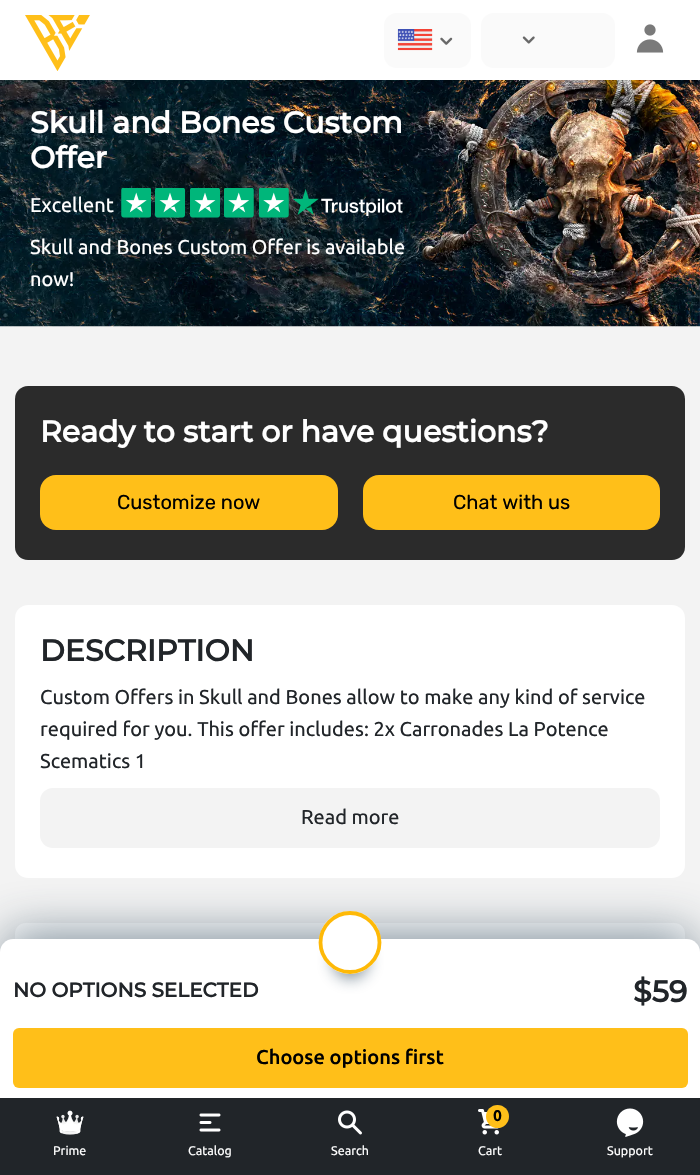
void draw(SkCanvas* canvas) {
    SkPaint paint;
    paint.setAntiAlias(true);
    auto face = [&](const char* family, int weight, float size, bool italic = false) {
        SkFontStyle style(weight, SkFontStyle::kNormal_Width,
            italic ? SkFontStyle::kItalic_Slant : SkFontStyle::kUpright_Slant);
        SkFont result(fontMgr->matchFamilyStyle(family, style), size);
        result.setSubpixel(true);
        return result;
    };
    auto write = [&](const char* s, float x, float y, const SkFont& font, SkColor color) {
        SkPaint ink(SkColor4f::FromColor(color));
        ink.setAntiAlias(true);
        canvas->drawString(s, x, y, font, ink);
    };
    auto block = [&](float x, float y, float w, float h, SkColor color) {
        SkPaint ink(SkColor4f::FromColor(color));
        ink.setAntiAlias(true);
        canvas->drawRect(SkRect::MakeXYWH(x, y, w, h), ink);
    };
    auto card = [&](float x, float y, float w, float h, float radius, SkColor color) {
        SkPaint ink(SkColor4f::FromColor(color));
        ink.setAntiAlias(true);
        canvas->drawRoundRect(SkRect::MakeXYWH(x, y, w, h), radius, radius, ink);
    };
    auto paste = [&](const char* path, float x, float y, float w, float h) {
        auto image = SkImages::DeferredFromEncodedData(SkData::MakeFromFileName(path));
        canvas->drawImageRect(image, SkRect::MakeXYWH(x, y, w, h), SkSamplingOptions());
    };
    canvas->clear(SkColorSetRGB(243, 243, 243));
    paste("pic6.png", 0, 80, 700, 247);
    paint.setColor(SkColorSetARGB(13, 0, 0, 0));
    paint.setMaskFilter(SkMaskFilter::MakeBlur(kNormal_SkBlurStyle, 15));
    canvas->drawRect(SkRect::MakeXYWH(0, 5, 700, 80), paint);
    paint.setMaskFilter(nullptr);
    block(0, 0, 700, 80, SK_ColorWHITE);
    paste("pic1.png", 25, 15, 65, 56);
    card(384, 13, 87, 55, 13, SkColorSetRGB(250, 250, 250));
    paste("pic2.png", 397, 29, 36, 22);
    paste("pic3.png", 440, 37, 13, 8);
    card(481, 13, 134, 55, 13, SkColorSetRGB(250, 250, 250));
    paste("pic4.png", 522, 36, 13, 8);
    paste("pic5.png", 636, 24, 28, 29);
    auto kFont1 = face("Montserrat", 700, 30);
    write("Skull and Bones Custom", 30, 133, kFont1, SK_ColorWHITE);
    write("Offer", 30, 168, kFont1, SK_ColorWHITE);
    auto kFont2 = face("Ubuntu", 400, 20);
    write("Excellent", 30, 212, kFont2, SK_ColorWHITE);
    paste("pic7.png", 121, 188, 30, 30);
    paste("pic8.png", 155, 188, 30, 30);
    paste("pic9.png", 190, 188, 30, 30);
    paste("pic10.png", 224, 188, 30, 30);
    paste("pic11.png", 259, 188, 30, 30);
    paste("pic12.png", 293, 189, 110, 27);
    write("Skull and Bones Custom Offer is available", 30, 254, kFont2, SK_ColorWHITE);
    write("now!", 30, 286, kFont2, SK_ColorWHITE);
    card(15, 386, 670, 174, 13, SkColorSetRGB(43, 43, 43));
    write("Ready to start or have questions?", 40, 442, kFont1, SK_ColorWHITE);
    card(40, 475, 298, 55, 16, SkColorSetRGB(255, 191, 25));
    auto kFont3 = face("Rubik", 400, 20);
    write("Customize now", 117, 509, kFont3, SK_ColorBLACK);
    card(363, 475, 297, 55, 16, SkColorSetRGB(255, 191, 25));
    write("Chat with us", 453, 509, kFont3, SK_ColorBLACK);
    card(15, 605, 670, 273, 13, SK_ColorWHITE);
    write("DESCRIPTION", 40, 661, kFont1, SkColorSetRGB(33, 37, 41));
    write("Custom Offers in Skull and Bones allow to make any kind of service", 40, 704, kFont2, SkColorSetRGB(33, 37, 41));
    write("required for you. This offer includes: 2x Carronades La Potence", 40, 736, kFont2, SkColorSetRGB(33, 37, 41));
    write("Scematics 1", 40, 768, kFont2, SkColorSetRGB(33, 37, 41));
    card(40, 788, 620, 60, 13, SkColorSetRGB(243, 243, 243));
    write("Read more", 301, 824, kFont2, SkColorSetRGB(33, 37, 41));
    card(15, 923, 670, 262, 10, SK_ColorWHITE);
    paint.setColor(SkColorSetARGB(153, 34, 60, 80));
    paint.setMaskFilter(SkMaskFilter::MakeBlur(kNormal_SkBlurStyle, 25));
    canvas->drawRoundRect(SkRect::MakeXYWH(6, 934, 688, 146), 6, 6, paint);
    paint.setMaskFilter(nullptr);
    paint.setColor(SK_ColorWHITE);
    canvas->drawPath(SkPathBuilder().moveTo(13, 939).lineTo(687, 939).cubicTo(694, 939, 700, 945, 700, 952).lineTo(700, 1098).lineTo(0, 1098).lineTo(0, 952).cubicTo(0, 945, 6, 939, 13, 939).close().detach(), paint);
    paint.setColor(SkColorSetARGB(153, 34, 60, 80));
    paint.setMaskFilter(SkMaskFilter::MakeBlur(kNormal_SkBlurStyle, 8));
    canvas->drawRoundRect(SkRect::MakeXYWH(333, 943, 35, 35), 17.5f, 17.5f, paint);
    paint.setMaskFilter(nullptr);
    paint.setColor(SK_ColorWHITE);
    canvas->drawPath(SkPathBuilder().moveTo(350, 974).cubicTo(333, 974, 319, 960, 319, 942).cubicTo(319, 925, 333, 911, 350, 911).cubicTo(367, 911, 381, 925, 381, 942).cubicTo(381, 960, 367, 974, 350, 974).close().detach(), paint);
    paint.setStyle(SkPaint::kStroke_Style);
    paint.setStrokeWidth(3.8f);
    paint.setColor(SkColorSetRGB(254, 185, 7));
    canvas->drawPath(SkPathBuilder().moveTo(350, 972).cubicTo(334, 972, 320.5f, 958.5f, 320.5f, 942.5f).cubicTo(320.5f, 926.5f, 334, 913, 350, 913).cubicTo(366, 913, 379.5f, 926.5f, 379.5f, 942.5f).cubicTo(379.5f, 958.5f, 366, 972, 350, 972).close().detach(), paint);
    auto kFont4 = face("Montserrat", 700, 20);
    write("NO OPTIONS SELECTED", 13, 997, kFont4, SkColorSetRGB(33, 37, 41));
    write("$59", 633, 1002, kFont1, SkColorSetRGB(33, 37, 41));
    card(13, 1028, 675, 60, 6, SkColorSetRGB(255, 191, 25));
    auto kFont5 = face("Ubuntu", 500, 20);
    write("Choose options first", 256, 1064, kFont5, SK_ColorBLACK);
    block(0, 1098, 700, 77, SkColorSetRGB(33, 37, 41));
    paste("pic13.png", 56, 1110, 28, 25);
    auto kFont6 = face("Ubuntu", 400, 12.5f);
    write("Prime", 53, 1155, kFont6, SK_ColorWHITE);
    paste("pic14.png", 199, 1113, 22, 19);
    write("Catalog", 188, 1155, kFont6, SK_ColorWHITE);
    paste("pic15.png", 338, 1110, 24, 25);
    write("Search", 331, 1155, kFont6, SK_ColorWHITE);
    paste("pic16.png", 478, 1109, 21, 26);
    paint.setStyle(SkPaint::kFill_Style);
    paint.setColor(SkColorSetRGB(255, 191, 25));
    canvas->drawCircle(497.5f, 1116.5f, 11.5f, paint);
    auto kFont7 = face("Ubuntu", 700, 15);
    write("0", 493, 1121, kFont7, SK_ColorBLACK);
    write("Cart", 478, 1155, kFont6, SK_ColorWHITE);
    paste("pic17.png", 616, 1108, 28, 29);
    write("Support", 607, 1155, kFont6, SK_ColorWHITE);
}
